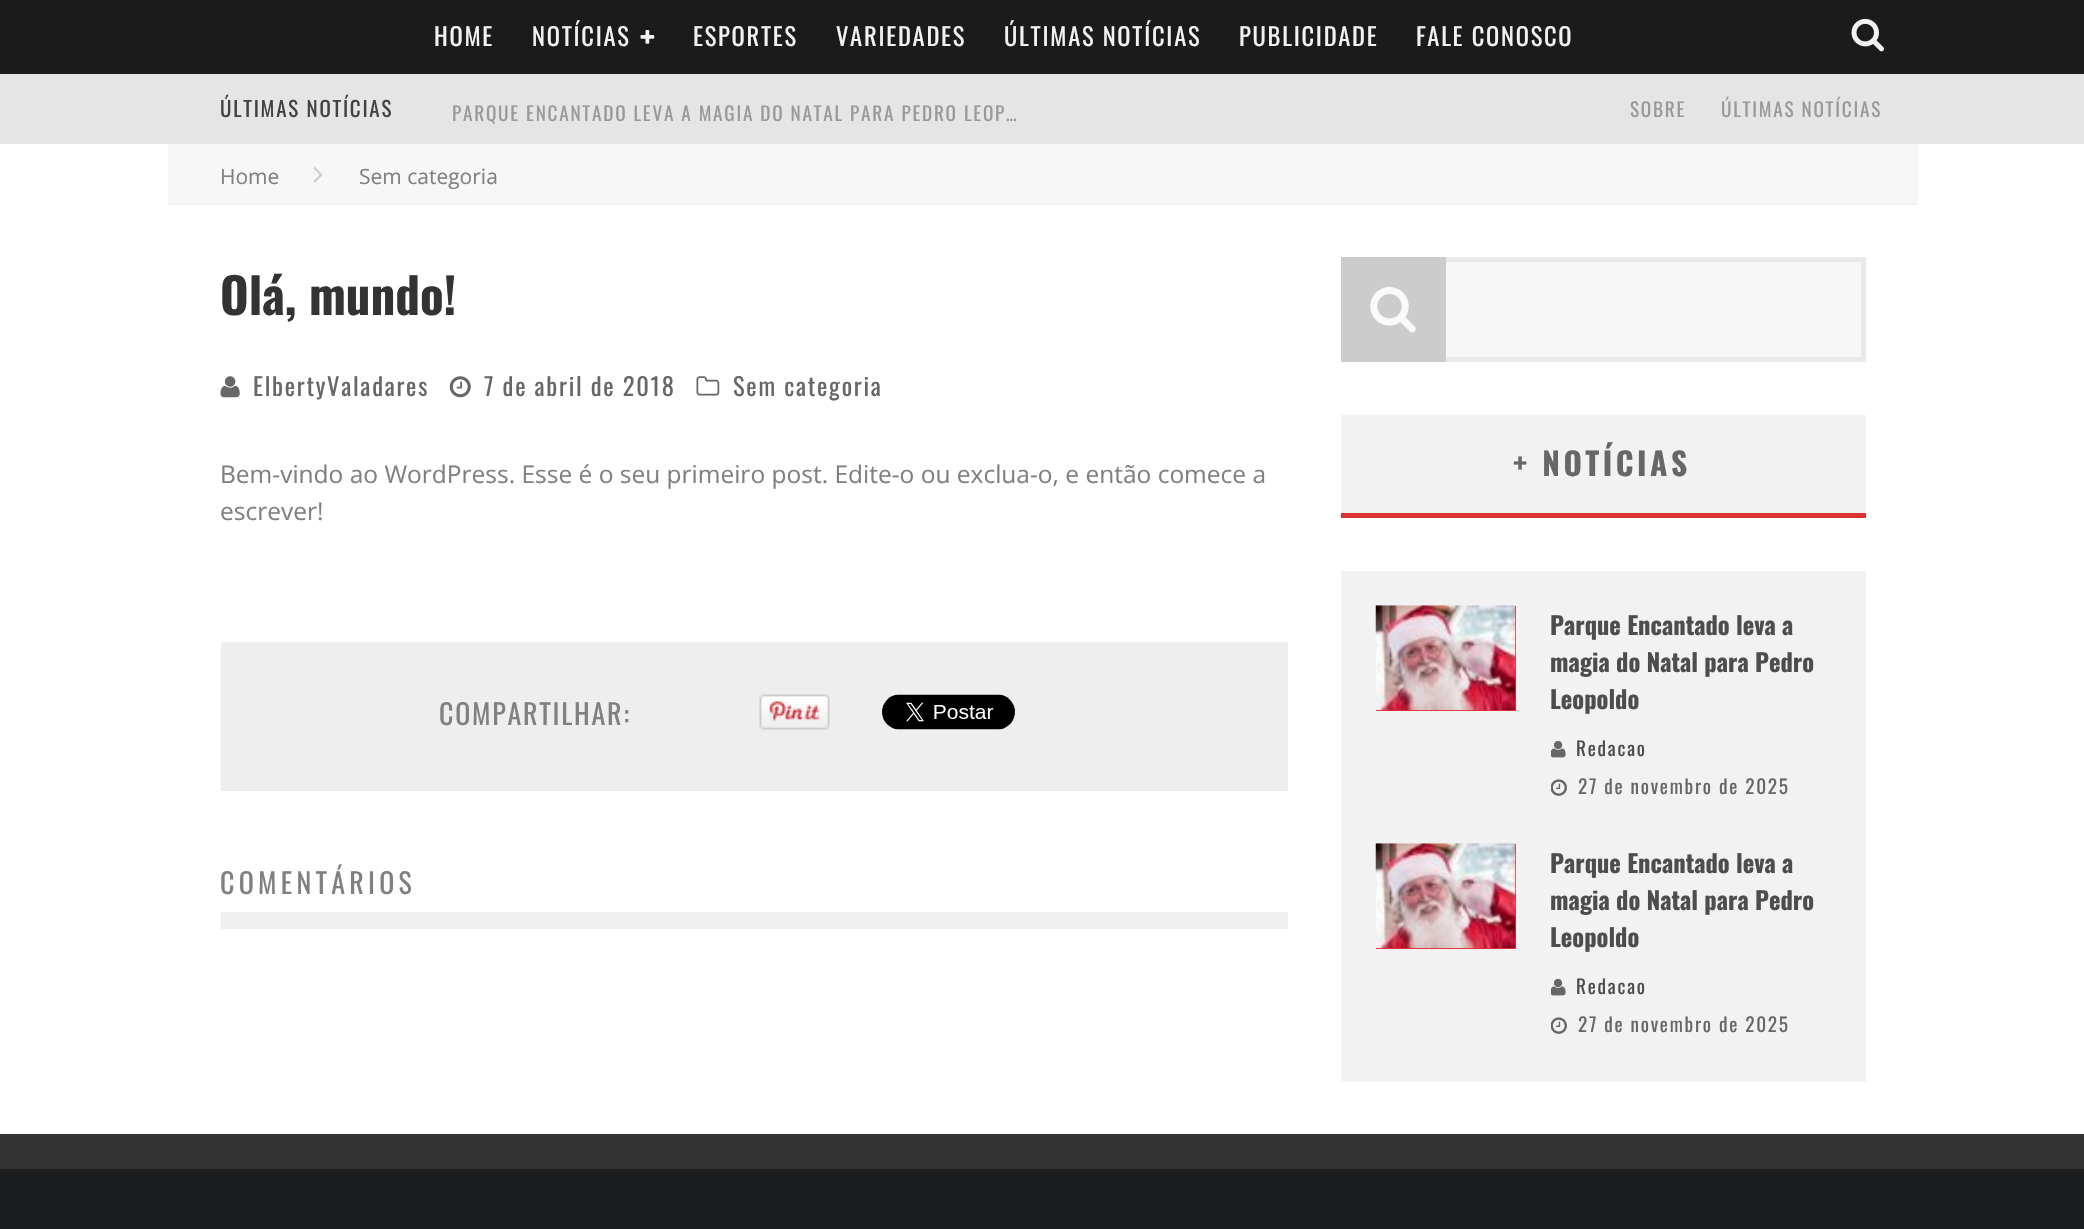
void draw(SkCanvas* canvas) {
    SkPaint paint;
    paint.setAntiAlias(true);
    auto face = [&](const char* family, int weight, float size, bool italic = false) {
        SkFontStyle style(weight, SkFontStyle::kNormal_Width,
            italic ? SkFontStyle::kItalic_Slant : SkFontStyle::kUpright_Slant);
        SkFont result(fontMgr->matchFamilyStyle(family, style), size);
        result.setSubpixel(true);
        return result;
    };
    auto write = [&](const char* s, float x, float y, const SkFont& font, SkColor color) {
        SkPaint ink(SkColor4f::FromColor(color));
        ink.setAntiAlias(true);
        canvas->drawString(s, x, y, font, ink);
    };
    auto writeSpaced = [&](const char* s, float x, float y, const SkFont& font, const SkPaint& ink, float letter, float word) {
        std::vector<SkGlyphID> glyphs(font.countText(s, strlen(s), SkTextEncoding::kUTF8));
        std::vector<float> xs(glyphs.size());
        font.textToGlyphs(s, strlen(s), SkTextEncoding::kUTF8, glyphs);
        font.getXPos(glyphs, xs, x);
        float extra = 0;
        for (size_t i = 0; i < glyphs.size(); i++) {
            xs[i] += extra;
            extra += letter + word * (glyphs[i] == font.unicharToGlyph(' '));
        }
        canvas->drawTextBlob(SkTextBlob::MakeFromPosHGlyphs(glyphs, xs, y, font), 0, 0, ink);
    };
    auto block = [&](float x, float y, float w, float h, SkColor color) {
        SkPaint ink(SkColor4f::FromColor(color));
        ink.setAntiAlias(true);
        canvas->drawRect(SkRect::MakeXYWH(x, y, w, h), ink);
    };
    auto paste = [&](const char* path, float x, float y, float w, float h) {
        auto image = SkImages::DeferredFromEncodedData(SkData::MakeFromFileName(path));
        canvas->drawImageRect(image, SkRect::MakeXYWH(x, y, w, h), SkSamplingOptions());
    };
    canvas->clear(SK_ColorWHITE);
    block(0, 0, 2084, 74, SkColorSetRGB(27, 27, 27));
    auto kFont1 = face("Oswald", 400, 24.5f);
    paint.setColor(SkColorSetRGB(242, 242, 242));
    writeSpaced("HOME", 434, 46, kFont1, paint, 1.75f, 0);
    writeSpaced("NOTÍCIAS", 532, 46, kFont1, paint, 1.75f, 0);
    paste("pic1.png", 640, 30, 15, 14);
    writeSpaced("ESPORTES", 693, 46, kFont1, paint, 1.75f, 0);
    writeSpaced("VARIEDADES", 836, 46, kFont1, paint, 1.75f, 0);
    writeSpaced("ÚLTIMAS NOTÍCIAS", 1004, 46, kFont1, paint, 1.75f, 0);
    writeSpaced("PUBLICIDADE", 1239, 46, kFont1, paint, 1.75f, 0);
    writeSpaced("FALE CONOSCO", 1416, 46, kFont1, paint, 1.75f, 0);
    paste("pic2.png", 1851, 18, 33, 34);
    block(0, 74, 2084, 70, SkColorSetRGB(229, 229, 229));
    auto kFont2 = face("Oswald", 400, 21);
    paint.setColor(SkColorSetRGB(66, 66, 66));
    writeSpaced("ÚLTIMAS NOTÍCIAS", 220, 117, kFont2, paint, 1.75f, 0);
    auto kFont3 = face("Oswald", 400, 19.25f);
    paint.setColor(SkColorSetRGB(153, 153, 153));
    writeSpaced("PARQUE ENCANTADO LEVA A MAGIA DO NATAL PARA PEDRO LEOP…", 452, 121, kFont3, paint, 1.75f, 0);
    writeSpaced("SOBRE", 1630, 117, kFont3, paint, 1.75f, 0);
    writeSpaced("ÚLTIMAS NOTÍCIAS", 1721, 117, kFont3, paint, 1.75f, 0);
    block(168, 144, 1750, 59, SkColorSetRGB(247, 247, 247));
    block(168, 203, 1750, 2, SkColorSetRGB(243, 243, 243));
    auto kFont4 = face("Open Sans", 400, 21);
    write("Home", 220, 184, kFont4, SkColorSetRGB(128, 128, 128));
    paste("pic3.png", 313, 167, 10, 16);
    write("Sem categoria", 359, 184, kFont4, SkColorSetRGB(128, 128, 128));
    auto kFont5 = face("Oswald", 700, 49);
    write("Olá, mundo!", 220, 315, kFont5, SkColorSetRGB(51, 51, 51));
    paste("pic4.png", 220, 376, 20, 22);
    paint.setColor(SkColorSetRGB(103, 103, 103));
    writeSpaced("ElbertyValadares", 253, 396, kFont1, paint, 1.75f, 0);
    paste("pic5.png", 449, 376, 22, 22);
    writeSpaced("7 de abril de 2018", 484, 396, kFont1, paint, 1.75f, 0);
    paste("pic6.png", 696, 376, 24, 20);
    writeSpaced("Sem categoria", 733, 396, kFont1, paint, 1.75f, 0);
    auto kFont6 = face("Open Sans", 400, 24.5f);
    write("Bem-vindo ao WordPress. Esse é o seu primeiro post. Edite-o ou exclua-o, e então comece a", 220, 483, kFont6, SkColorSetRGB(128, 128, 128));
    write("escrever!", 220, 520, kFont6, SkColorSetRGB(128, 128, 128));
    block(221, 642, 1067, 149, SkColorSetRGB(238, 238, 238));
    auto kFont7 = face("Oswald", 400, 28);
    paint.setColor(SkColorSetRGB(128, 128, 128));
    writeSpaced("COMPARTILHAR:", 439, 725, kFont7, paint, 1.75f, 0);
    paste("pic7.png", 759, 694, 71, 36);
    paste("pic8.png", 882, 694, 133, 36);
    block(221, 912, 1067, 17, SkColorSetRGB(240, 240, 240));
    writeSpaced("COMENTÁRIOS", 220, 894, kFont7, paint, 4.25f, 0);
    block(1446, 262, 415, 95, SkColorSetRGB(247, 247, 247));
    paint.setStyle(SkPaint::kStroke_Style);
    paint.setStrokeWidth(5);
    paint.setColor(SkColorSetRGB(233, 233, 233));
    canvas->drawRect(SkRect::MakeXYWH(1343.5f, 259.5f, 520, 100), paint);
    block(1341, 257, 105, 105, SkColorSetRGB(204, 204, 204));
    paste("pic9.png", 1370, 287, 46, 46);
    block(1341, 415, 525, 98, SkColorSetRGB(242, 242, 242));
    block(1341, 513, 525, 5, SkColorSetRGB(221, 51, 51));
    auto kFont8 = face("Oswald", 700, 31.5f);
    paint.setStyle(SkPaint::kFill_Style);
    paint.setColor(SkColorSetRGB(103, 103, 103));
    writeSpaced("+ NOTÍCIAS", 1513, 476, kFont8, paint, 3.5f, 0);
    block(1341, 571, 525, 511, SkColorSetRGB(242, 242, 242));
    block(1376, 606, 140, 105, SkColorSetRGB(221, 51, 51));
    paste("pic10.png", 1375, 605, 141, 106);
    auto kFont9 = face("Oswald", 700, 24.5f);
    write("Parque Encantado leva a", 1550, 635, kFont9, SkColorSetRGB(77, 77, 77));
    canvas->save();
    canvas->clipRect(SkRect::MakeXYWH(1551, 606, 280, 203));
    write("magia do Natal para Pedro", 1550, 672, kFont9, SkColorSetRGB(77, 77, 77));
    canvas->restore();
    write("Leopoldo", 1550, 709, kFont9, SkColorSetRGB(77, 77, 77));
    paste("pic11.png", 1551, 740, 15, 18);
    paint.setColor(SkColorSetRGB(77, 77, 77));
    writeSpaced("Redacao", 1576, 756, kFont3, paint, 1.75f, 0);
    paste("pic12.png", 1551, 779, 16, 17);
    paint.setColor(SkColorSetRGB(103, 103, 103));
    writeSpaced("27 de novembro de 2025", 1578, 794, kFont3, paint, 1.75f, 0);
    block(1376, 844, 140, 105, SkColorSetRGB(221, 51, 51));
    paste("pic10.png", 1375, 843, 141, 106);
    write("Parque Encantado leva a", 1550, 873, kFont9, SkColorSetRGB(77, 77, 77));
    canvas->save();
    canvas->clipRect(SkRect::MakeXYWH(1551, 844, 280, 203));
    write("magia do Natal para Pedro", 1550, 910, kFont9, SkColorSetRGB(77, 77, 77));
    canvas->restore();
    write("Leopoldo", 1550, 947, kFont9, SkColorSetRGB(77, 77, 77));
    paste("pic11.png", 1551, 978, 15, 18);
    paint.setColor(SkColorSetRGB(77, 77, 77));
    writeSpaced("Redacao", 1576, 994, kFont3, paint, 1.75f, 0);
    paste("pic12.png", 1551, 1017, 16, 17);
    paint.setColor(SkColorSetRGB(103, 103, 103));
    writeSpaced("27 de novembro de 2025", 1578, 1032, kFont3, paint, 1.75f, 0);
    block(0, 1134, 2084, 35, SkColorSetRGB(51, 51, 51));
    block(0, 1169, 2084, 60, SkColorSetRGB(28, 29, 30));
}
